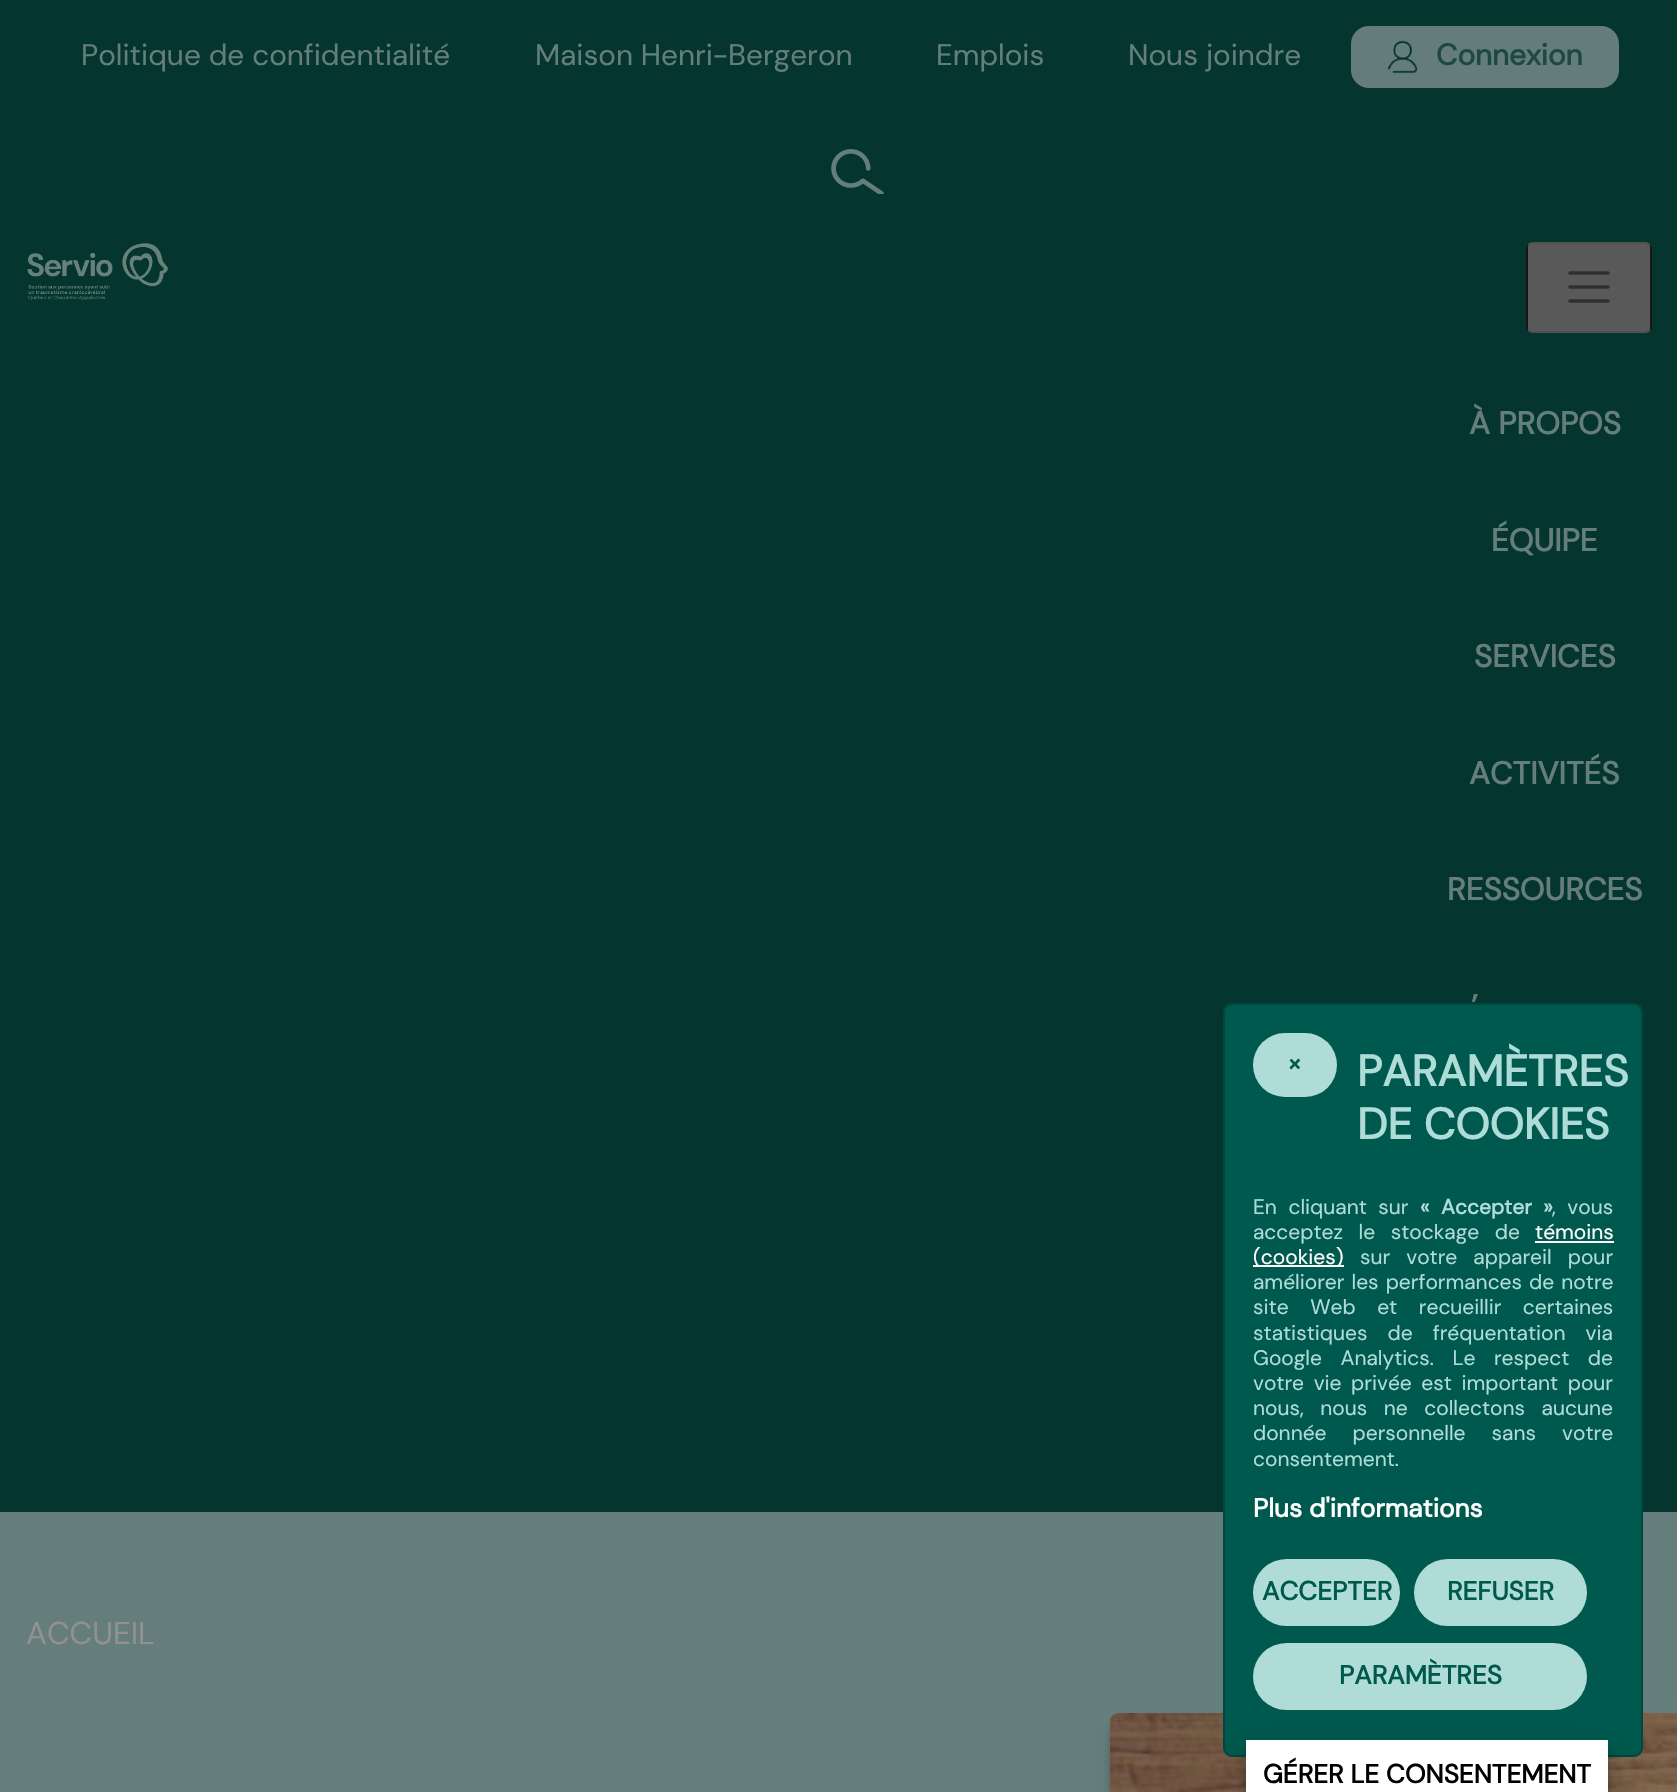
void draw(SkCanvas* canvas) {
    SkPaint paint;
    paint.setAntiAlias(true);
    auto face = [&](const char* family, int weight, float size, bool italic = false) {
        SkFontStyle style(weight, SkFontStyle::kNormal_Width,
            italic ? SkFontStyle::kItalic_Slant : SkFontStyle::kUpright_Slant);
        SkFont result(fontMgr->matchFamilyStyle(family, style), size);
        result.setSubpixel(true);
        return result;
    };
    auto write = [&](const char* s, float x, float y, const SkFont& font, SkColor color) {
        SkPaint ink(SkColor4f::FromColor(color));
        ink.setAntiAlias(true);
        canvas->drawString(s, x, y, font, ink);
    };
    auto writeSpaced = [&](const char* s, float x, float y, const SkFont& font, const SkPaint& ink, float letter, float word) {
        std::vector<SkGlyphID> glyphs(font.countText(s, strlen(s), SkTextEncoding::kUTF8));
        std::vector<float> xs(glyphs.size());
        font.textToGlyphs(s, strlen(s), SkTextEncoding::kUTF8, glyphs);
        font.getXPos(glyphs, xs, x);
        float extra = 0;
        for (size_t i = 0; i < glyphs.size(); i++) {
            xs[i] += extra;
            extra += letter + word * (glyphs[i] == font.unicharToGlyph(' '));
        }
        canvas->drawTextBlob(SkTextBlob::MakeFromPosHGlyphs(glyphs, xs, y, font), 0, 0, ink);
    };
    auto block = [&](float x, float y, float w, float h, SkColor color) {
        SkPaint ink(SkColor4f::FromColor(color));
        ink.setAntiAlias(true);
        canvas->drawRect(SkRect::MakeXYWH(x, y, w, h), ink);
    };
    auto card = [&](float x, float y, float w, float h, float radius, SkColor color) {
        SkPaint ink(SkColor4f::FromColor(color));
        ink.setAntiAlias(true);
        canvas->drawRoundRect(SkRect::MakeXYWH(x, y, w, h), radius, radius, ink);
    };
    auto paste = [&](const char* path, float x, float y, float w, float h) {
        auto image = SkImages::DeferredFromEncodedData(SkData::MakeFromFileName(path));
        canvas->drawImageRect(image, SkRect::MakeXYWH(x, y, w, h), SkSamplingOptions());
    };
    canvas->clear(SkColorSetRGB(5, 53, 47));
    auto kFont1 = face("DM Sans", 400, 29.75f);
    write("Politique de confidentialité", 81, 65, kFont1, SkColorSetRGB(101, 126, 123));
    write("Maison Henri-Bergeron", 535, 65, kFont1, SkColorSetRGB(101, 126, 123));
    write("Emplois", 936, 65, kFont1, SkColorSetRGB(101, 126, 123));
    write("Nous joindre", 1128, 65, kFont1, SkColorSetRGB(101, 126, 123));
    card(1351, 26, 268, 62, 18, SkColorSetRGB(101, 125, 122));
    paste("pic1.png", 1387, 40, 31, 34);
    auto kFont2 = face("DM Sans", 700, 29.75f);
    write("Connexion", 1436, 65, kFont2, SkColorSetRGB(30, 73, 67));
    paste("pic2.png", 831, 149, 53, 45);
    paste("pic3.png", 27, 243, 141, 58);
    canvas->save();
    canvas->clipPath(SkPathBuilder().moveTo(1533, 242).lineTo(1645, 242).cubicTo(1649, 242, 1652, 245, 1652, 249).lineTo(1652, 326).cubicTo(1652, 330, 1649, 333, 1645, 333).lineTo(1533, 333).cubicTo(1529, 333, 1526, 330, 1526, 326).lineTo(1526, 249).cubicTo(1526, 245, 1529, 242, 1533, 242).close().detach(), true);
    block(1528, 242, 122, 91, SkColorSetRGB(89, 89, 89));
    block(1526, 242, 2, 91, SkColorSetRGB(23, 23, 23));
    block(1650, 242, 2, 91, SkColorSetRGB(23, 23, 23));
    canvas->restore();
    paint.setStyle(SkPaint::kStroke_Style);
    paint.setStrokeWidth(2);
    paint.setColor(SkColorSetARGB(26, 5, 5, 5));
    canvas->drawRoundRect(SkRect::MakeXYWH(1527, 243, 124, 89), 6, 6, paint);
    paint.setStrokeWidth(3.5f);
    paint.setStrokeCap(SkPaint::kRound_Cap);
    paint.setColor(SkColorSetRGB(47, 47, 47));
    canvas->drawPath(SkPathBuilder().moveTo(1570, 273).lineTo(1608, 273).moveTo(1570, 287).lineTo(1608, 287).moveTo(1570, 301).lineTo(1608, 301).detach(), paint);
    auto kFont3 = face("DM Sans", 700, 31.5f);
    write("À PROPOS", 1469, 434, kFont3, SkColorSetRGB(101, 126, 123));
    write("ÉQUIPE", 1491, 551, kFont3, SkColorSetRGB(101, 126, 123));
    write("SERVICES", 1474, 667, kFont3, SkColorSetRGB(101, 126, 123));
    write("ACTIVITÉS", 1469, 784, kFont3, SkColorSetRGB(101, 126, 123));
    write("RESSOURCES", 1447, 900, kFont3, SkColorSetRGB(101, 126, 123));
    write("’", 1471, 1017, kFont3, SkColorSetRGB(101, 126, 123));
    block(0, 1512, 1677, 280, SkColorSetRGB(101, 126, 123));
    auto kFont4 = face("DM Sans", 400, 31.5f);
    write("ACCUEIL", 26, 1644, kFont4, SkColorSetRGB(145, 145, 145));
    paint.setStyle(SkPaint::kFill_Style);
    paint.setColor(SkColorSetARGB(64, 32, 32, 56));
    paint.setMaskFilter(SkMaskFilter::MakeBlur(kNormal_SkBlurStyle, 10.5f));
    canvas->drawRoundRect(SkRect::MakeXYWH(1113, 1727, 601, 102), 5, 5, paint);
    paint.setMaskFilter(nullptr);
    paint.setColor(SkColorSetARGB(77, 5, 5, 5));
    paint.setMaskFilter(SkMaskFilter::MakeBlur(kNormal_SkBlurStyle, 6));
    canvas->drawRoundRect(SkRect::MakeXYWH(1115, 1724, 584, 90), 4, 4, paint);
    paint.setMaskFilter(nullptr);
    paste("pic4.png", 1110, 1713, 567, 79);
    card(1223, 1003, 420, 754, 9, SkColorSetRGB(0, 89, 78));
    paint.setStyle(SkPaint::kStroke_Style);
    paint.setStrokeWidth(2);
    paint.setStrokeCap(SkPaint::kButt_Cap);
    paint.setColor(SkColorSetARGB(51, 0, 0, 0));
    canvas->drawRoundRect(SkRect::MakeXYWH(1224, 1004, 418, 752), 8, 8, paint);
    card(1253, 1033, 84, 64, 32, SkColorSetRGB(175, 220, 215));
    auto kFont5 = face("DM Sans", 700, 26.25f);
    write("×", 1288, 1072, kFont5, SkColorSetRGB(0, 89, 78));
    auto kFont6 = face("DM Sans", 700, 43.75f);
    write("PARAMÈTRES", 1357, 1086, kFont6, SkColorSetRGB(175, 220, 215));
    write("DE COOKIES", 1357, 1139, kFont6, SkColorSetRGB(175, 220, 215));
    auto kFont7 = face("DM Sans", 400, 21);
    paint.setStyle(SkPaint::kFill_Style);
    paint.setColor(SkColorSetRGB(175, 220, 215));
    writeSpaced("En cliquant sur", 1253, 1214, kFont7, paint, 0, 6);
    auto kFont8 = face("DM Sans", 700, 21);
    writeSpaced("« Accepter »", 1420, 1214, kFont8, paint, 0, 6);
    writeSpaced(", vous", 1552, 1214, kFont7, paint, 0, 6);
    writeSpaced("acceptez le stockage de", 1253, 1239, kFont7, paint, 0, 10);
    write("témoins", 1535, 1239, kFont7, SK_ColorWHITE);
    block(1535, 1241, 79, 2, SK_ColorWHITE);
    block(1253, 1265, 91, 2, SK_ColorWHITE);
    write("(cookies)", 1253, 1264, kFont7, SK_ColorWHITE);
    writeSpaced("sur votre appareil pour", 1360, 1264, kFont7, paint, 0, 10.5f);
    writeSpaced("améliorer les performances de notre", 1253, 1289, kFont7, paint, 0, 1.5f);
    writeSpaced("site Web et recueillir certaines", 1253, 1314, kFont7, paint, 0, 16);
    writeSpaced("statistiques de fréquentation via", 1253, 1340, kFont7, paint, 0, 14.5f);
    writeSpaced("Google Analytics. Le respect de", 1253, 1365, kFont7, paint, 0, 13);
    writeSpaced("votre vie privée est important pour", 1253, 1390, kFont7, paint, 0, 4);
    writeSpaced("nous, nous ne collectons aucune", 1253, 1415, kFont7, paint, 0, 11);
    writeSpaced("donnée personnelle sans votre", 1253, 1440, kFont7, paint, 0, 20.5f);
    write("consentement.", 1253, 1466, kFont7, SkColorSetRGB(175, 220, 215));
    write("Plus d'informations", 1253, 1517, kFont5, SK_ColorWHITE);
    card(1253, 1559, 147, 67, 33.5f, SkColorSetRGB(175, 220, 215));
    write("ACCEPTER", 1262, 1600, kFont5, SkColorSetRGB(0, 89, 78));
    card(1414, 1559, 173, 67, 33.5f, SkColorSetRGB(175, 220, 215));
    write("REFUSER", 1447, 1600, kFont5, SkColorSetRGB(0, 89, 78));
    card(1253, 1643, 334, 67, 33.5f, SkColorSetRGB(175, 220, 215));
    write("PARAMÈTRES", 1339, 1684, kFont5, SkColorSetRGB(0, 89, 78));
    paint.setColor(SkColorSetARGB(59, 0, 0, 0));
    paint.setMaskFilter(SkMaskFilter::MakeBlur(kNormal_SkBlurStyle, 5));
    canvas->drawRect(SkRect::MakeXYWH(1246, 1750, 362, 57), paint);
    paint.setMaskFilter(nullptr);
    paint.setColor(SkColorSetARGB(48, 0, 0, 0));
    paint.setMaskFilter(SkMaskFilter::MakeBlur(kNormal_SkBlurStyle, 17.5f));
    canvas->drawRect(SkRect::MakeXYWH(1246, 1757, 362, 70), paint);
    paint.setMaskFilter(nullptr);
    block(1246, 1740, 362, 52, SK_ColorWHITE);
    write("GÉRER LE CONSENTEMENT", 1263, 1783, kFont5, SK_ColorBLACK);
}
